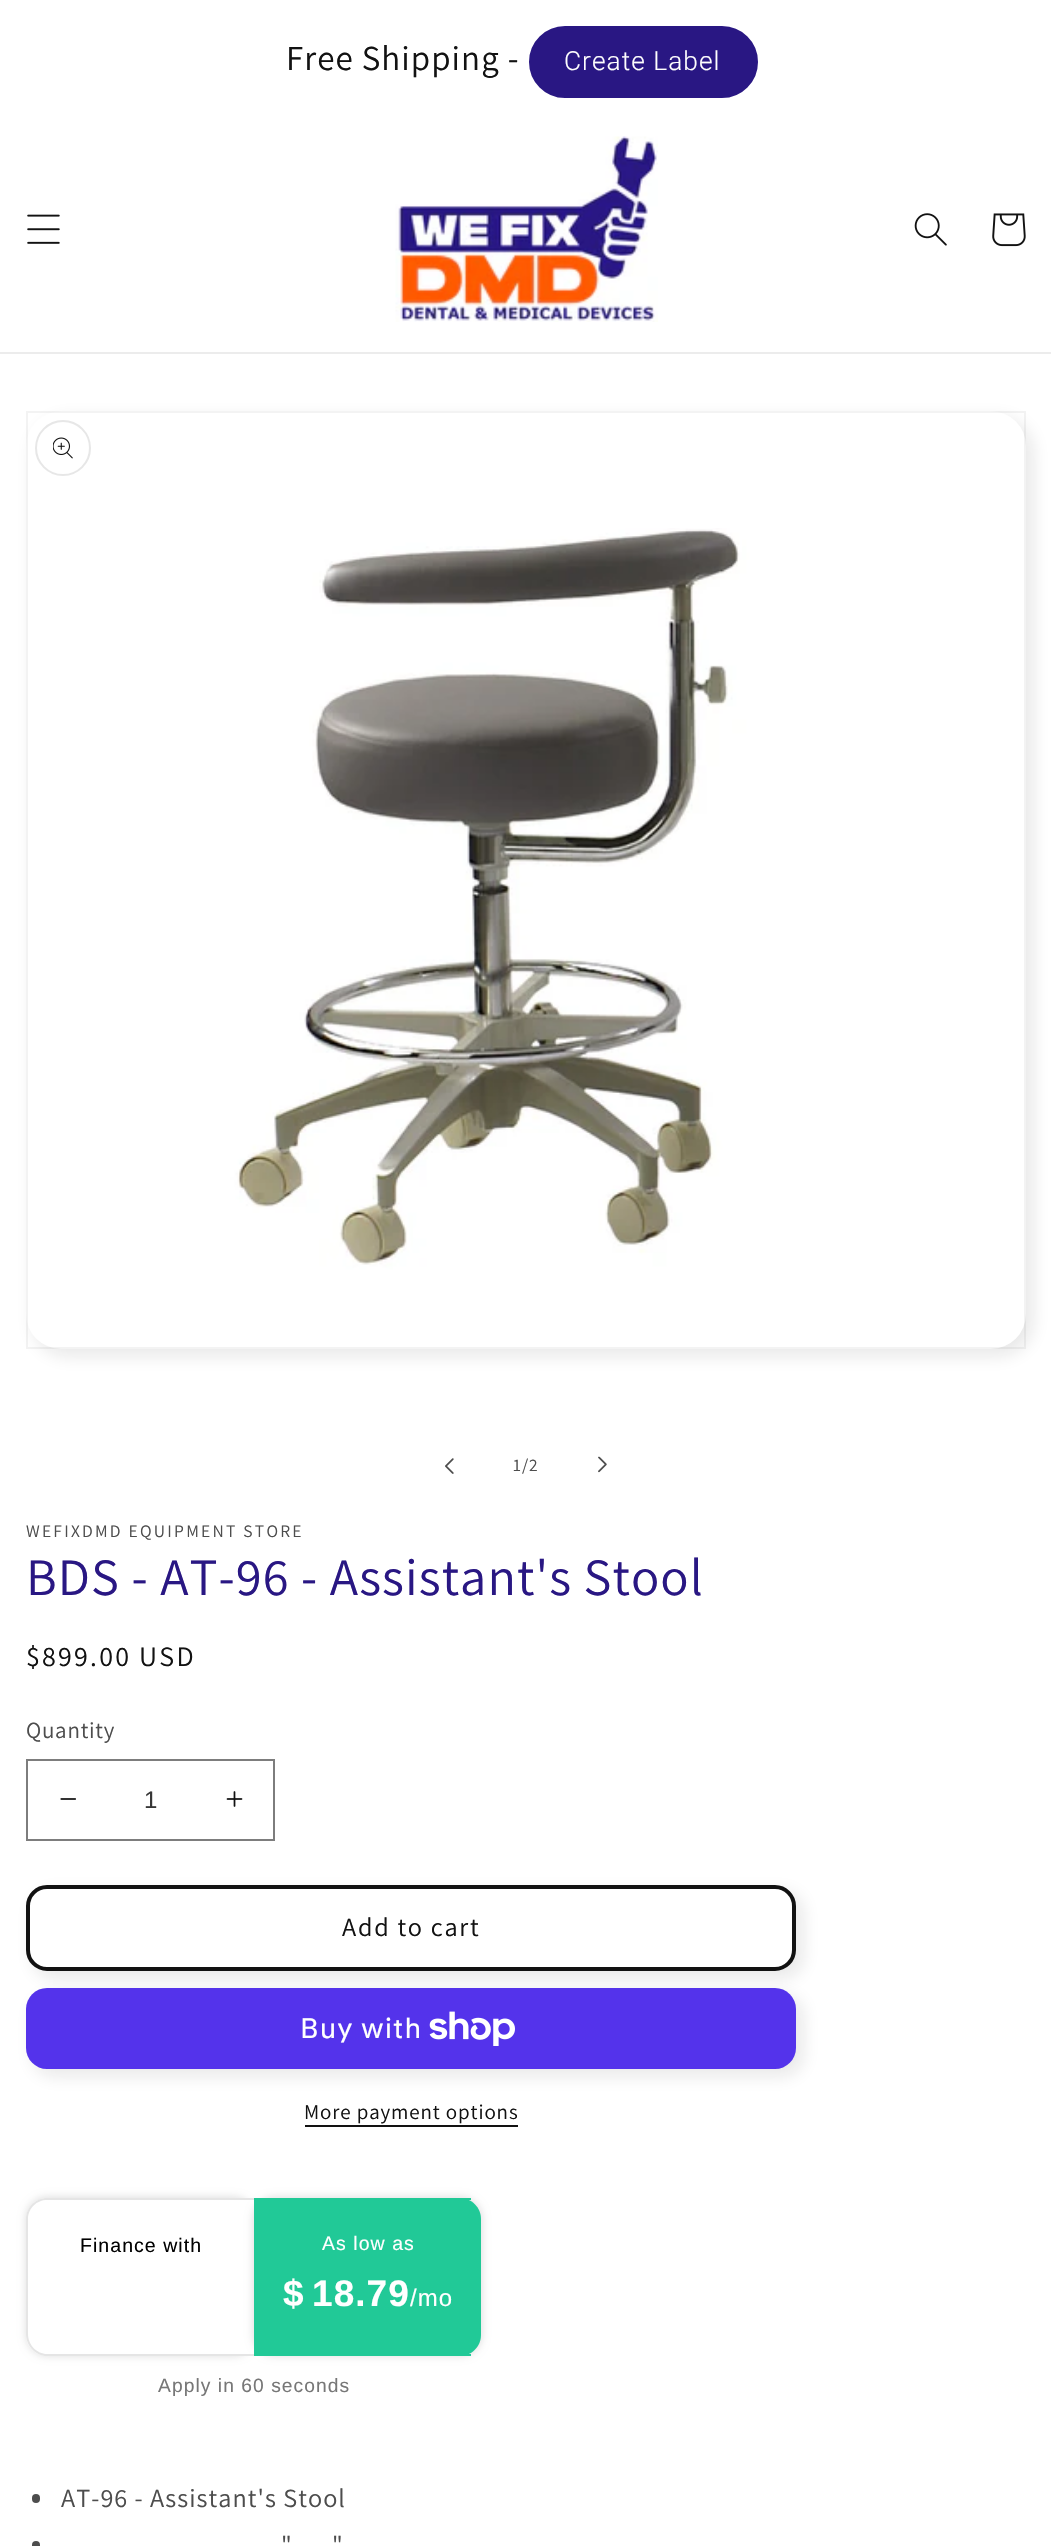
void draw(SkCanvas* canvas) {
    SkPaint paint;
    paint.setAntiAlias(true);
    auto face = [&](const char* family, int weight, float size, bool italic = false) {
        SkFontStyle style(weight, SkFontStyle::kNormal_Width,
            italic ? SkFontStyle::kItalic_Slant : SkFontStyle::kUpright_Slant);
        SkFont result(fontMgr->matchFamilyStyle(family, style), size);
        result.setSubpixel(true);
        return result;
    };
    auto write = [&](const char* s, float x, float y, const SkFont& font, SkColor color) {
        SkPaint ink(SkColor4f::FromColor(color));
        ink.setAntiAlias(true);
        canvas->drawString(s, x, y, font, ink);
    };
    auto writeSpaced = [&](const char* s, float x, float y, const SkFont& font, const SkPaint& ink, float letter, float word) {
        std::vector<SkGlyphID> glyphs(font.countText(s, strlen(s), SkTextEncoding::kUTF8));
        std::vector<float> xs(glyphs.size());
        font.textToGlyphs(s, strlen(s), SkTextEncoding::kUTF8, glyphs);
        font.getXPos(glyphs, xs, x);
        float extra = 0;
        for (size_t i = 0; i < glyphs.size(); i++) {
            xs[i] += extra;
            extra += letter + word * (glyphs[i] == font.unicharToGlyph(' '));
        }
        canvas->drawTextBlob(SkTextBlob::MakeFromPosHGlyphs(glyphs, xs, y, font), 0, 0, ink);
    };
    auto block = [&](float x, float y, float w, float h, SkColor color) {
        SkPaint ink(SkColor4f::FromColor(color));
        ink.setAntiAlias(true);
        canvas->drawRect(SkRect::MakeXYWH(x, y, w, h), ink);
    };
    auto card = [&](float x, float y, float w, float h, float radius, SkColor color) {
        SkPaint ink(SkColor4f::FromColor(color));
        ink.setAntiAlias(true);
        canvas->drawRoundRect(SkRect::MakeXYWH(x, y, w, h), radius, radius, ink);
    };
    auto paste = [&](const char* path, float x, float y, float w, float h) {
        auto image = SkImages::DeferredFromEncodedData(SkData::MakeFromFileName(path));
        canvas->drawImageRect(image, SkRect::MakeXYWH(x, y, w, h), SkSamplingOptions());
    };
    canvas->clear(SK_ColorWHITE);
    auto kFont1 = face("Assistant", 400, 35);
    paint.setColor(SkColorSetRGB(18, 18, 18));
    writeSpaced("Free Shipping -", 286, 70, kFont1, paint, 1.05f, 0);
    paint.setColor(SkColorSetRGB(41, 23, 131));
    canvas->drawRoundRect(SkRect::MakeXYWH(531.5f, 28.5f, 224, 67), 33.5f, 33.5f, paint);
    paint.setStyle(SkPaint::kStroke_Style);
    paint.setStrokeWidth(5);
    canvas->drawRoundRect(SkRect::MakeXYWH(531.5f, 28.5f, 224, 67), 33.5f, 33.5f, paint);
    auto kFont2 = face("Roboto", 300, 26.25f);
    paint.setStyle(SkPaint::kFill_Style);
    paint.setColor(SK_ColorWHITE);
    writeSpaced("Create Label", 564, 70, kFont2, paint, 1.05f, 0);
    block(0, 352, 1051, 2, SkColorSetRGB(236, 236, 236));
    paste("pic1.png", 27, 214, 33, 30);
    paste("pic2.png", 395, 136, 263, 186);
    paste("pic3.png", 914, 213, 33, 33);
    paste("pic4.png", 992, 213, 34, 34);
    paint.setColor(SkColorSetARGB(26, 18, 18, 18));
    paint.setMaskFilter(SkMaskFilter::MakeBlur(kNormal_SkBlurStyle, 9));
    canvas->drawRoundRect(SkRect::MakeXYWH(33, 418, 1000, 938), 35, 35, paint);
    paint.setMaskFilter(nullptr);
    card(26, 411, 1000, 938, 35, SK_ColorWHITE);
    paint.setStyle(SkPaint::kStroke_Style);
    paint.setStrokeWidth(2);
    paint.setColor(SkColorSetARGB(13, 18, 18, 18));
    canvas->drawRect(SkRect::MakeXYWH(27, 412, 998, 936), paint);
    paste("pic5.png", 33, 528, 971, 819);
    paint.setColor(SkColorSetRGB(231, 231, 231));
    canvas->drawCircle(63, 448, 27, paint);
    paste("pic6.png", 53, 437, 20, 22);
    paste("pic7.png", 445, 1458, 9, 16);
    auto kFont3 = face("Assistant", 400, 17.5f);
    paint.setStyle(SkPaint::kFill_Style);
    paint.setColor(SkColorSetRGB(77, 77, 77));
    writeSpaced("1/2", 513, 1471, kFont3, paint, 1, 0);
    paste("pic8.png", 598, 1456, 9, 17);
    writeSpaced("WEFIXDMD EQUIPMENT STORE", 26, 1537, kFont3, paint, 2.25f, 0);
    auto kFont4 = face("Assistant", 400, 52.5f);
    paint.setColor(SkColorSetRGB(41, 23, 131));
    writeSpaced("BDS - AT-96 - Assistant's Stool", 26, 1595, kFont4, paint, 1.05f, 0);
    auto kFont5 = face("Assistant", 400, 28);
    paint.setColor(SkColorSetRGB(18, 18, 18));
    writeSpaced("$899.00 USD", 26, 1666, kFont5, paint, 2.25f, 0);
    auto kFont6 = face("Assistant", 400, 23);
    paint.setColor(SkColorSetRGB(77, 77, 77));
    writeSpaced("Quantity", 26, 1738, kFont6, paint, 0.75f, 0);
    paste("pic9.png", 60, 1798, 16, 2);
    paste("pic10.png", 226, 1791, 17, 16);
    paint.setStyle(SkPaint::kStroke_Style);
    paint.setColor(SkColorSetRGB(125, 125, 125));
    canvas->drawRect(SkRect::MakeXYWH(27, 1760, 247, 80), paint);
    auto kFont7 = face("Liberation Sans", 400, 24);
    write("1", 144, 1808, kFont7, SkColorSetRGB(54, 54, 54));
    paint.setStyle(SkPaint::kFill_Style);
    paint.setColor(SkColorSetARGB(26, 18, 18, 18));
    paint.setMaskFilter(SkMaskFilter::MakeBlur(kNormal_SkBlurStyle, 9));
    canvas->drawRoundRect(SkRect::MakeXYWH(33, 1892, 770, 86), 21, 21, paint);
    paint.setMaskFilter(nullptr);
    paint.setMaskFilter(SkMaskFilter::MakeBlur(kNormal_SkBlurStyle, 9));
    canvas->drawRoundRect(SkRect::MakeXYWH(33, 1995, 770, 81), 21, 21, paint);
    paint.setMaskFilter(nullptr);
    card(26, 1885, 770, 86, 21, SK_ColorWHITE);
    paint.setStyle(SkPaint::kStroke_Style);
    paint.setStrokeWidth(4);
    paint.setColor(SK_ColorWHITE);
    canvas->drawRoundRect(SkRect::MakeXYWH(28, 1887, 766, 82), 19, 19, paint);
    paint.setColor(SkColorSetRGB(18, 18, 18));
    canvas->drawRoundRect(SkRect::MakeXYWH(28, 1887, 766, 82), 19, 19, paint);
    auto kFont8 = face("Assistant", 400, 26.25f);
    paint.setStyle(SkPaint::kFill_Style);
    writeSpaced("Add to cart", 342, 1936, kFont8, paint, 1.75f, 0);
    card(26, 1988, 770, 81, 21, SkColorSetRGB(84, 51, 235));
    auto kFont9 = face("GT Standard", 400, 28);
    paint.setColor(SK_ColorWHITE);
    writeSpaced("Buy with", 300, 2038, kFont9, paint, 1.05f, 0);
    paste("pic11.png", 429, 2011, 86, 35);
    auto kFont10 = face("Assistant", 400, 21);
    paint.setColor(SkColorSetRGB(18, 18, 18));
    writeSpaced("More payment options", 304, 2119, kFont10, paint, 0.9f, 0);
    block(305, 2125, 213, 2, SkColorSetRGB(18, 18, 18));
    paint.setColor(SkColorSetRGB(229, 229, 229));
    paint.setMaskFilter(SkMaskFilter::MakeBlur(kNormal_SkBlurStyle, 3.5f));
    canvas->drawRoundRect(SkRect::MakeXYWH(25, 2196, 231, 161), 23, 23, paint);
    paint.setMaskFilter(nullptr);
    paint.setColor(SK_ColorWHITE);
    canvas->drawPath(SkPathBuilder().moveTo(47, 2198).lineTo(254, 2198).lineTo(254, 2356).lineTo(47, 2356).cubicTo(35.5f, 2356, 26, 2346.5f, 26, 2335).lineTo(26, 2219).cubicTo(26, 2207.5f, 35.5f, 2198, 47, 2198).close().detach(), paint);
    paint.setColor(SkColorSetRGB(229, 229, 229));
    canvas->drawPath(SkPathBuilder(SkPathFillType::kEvenOdd).moveTo(47, 2198).lineTo(254, 2198).lineTo(254, 2356).lineTo(47, 2356).cubicTo(36, 2356, 26, 2346, 26, 2334).lineTo(26, 2219).cubicTo(26, 2207, 36, 2198, 47, 2198).close().moveTo(47, 2200).lineTo(254, 2200).lineTo(254, 2354).lineTo(47, 2354).cubicTo(37, 2354, 28, 2345, 28, 2334).lineTo(28, 2219).cubicTo(28, 2208, 37, 2200, 47, 2200).close().detach(), paint);
    auto kFont11 = face("Liberation Sans", 400, 19.5f);
    paint.setColor(SK_ColorBLACK);
    writeSpaced("Finance with", 80, 2252, kFont11, paint, 1.05f, 0);
    paint.setColor(SkColorSetRGB(229, 229, 229));
    paint.setMaskFilter(SkMaskFilter::MakeBlur(kNormal_SkBlurStyle, 3.5f));
    canvas->drawRoundRect(SkRect::MakeXYWH(252, 2196, 231, 161), 23, 23, paint);
    paint.setMaskFilter(nullptr);
    paint.setColor(SkColorSetRGB(33, 201, 151));
    canvas->drawPath(SkPathBuilder().moveTo(254, 2198).lineTo(460, 2198).cubicTo(471.5f, 2198, 481, 2207.5f, 481, 2219).lineTo(481, 2335).cubicTo(481, 2346.5f, 471.5f, 2356, 460, 2356).lineTo(254, 2356).close().detach(), paint);
    block(460, 2198, 11, 2, SkColorSetRGB(33, 201, 151));
    block(460, 2354, 11, 2, SkColorSetRGB(33, 201, 151));
    paint.setColor(SK_ColorWHITE);
    writeSpaced("As low as", 322, 2250, kFont11, paint, 1.05f, 0);
    auto kFont12 = face("Liberation Sans", 700, 37);
    writeSpaced("$", 283, 2306, kFont12, paint, 1.05f, 0);
    writeSpaced("18.79", 312, 2306, kFont12, paint, 1.05f, 0);
    writeSpaced("/mo", 410, 2306, kFont7, paint, 1.05f, 0);
    auto kFont13 = face("Liberation Sans", 400, 19.25f);
    paint.setColor(SkColorSetRGB(119, 119, 119));
    writeSpaced("Apply in 60 seconds", 158, 2392, kFont13, paint, 1.05f, 0);
    card(32, 2494, 8, 9, 4, SkColorSetRGB(77, 77, 77));
    paint.setColor(SkColorSetRGB(77, 77, 77));
    writeSpaced("AT-96 - Assistant's Stool", 61, 2507, kFont8, paint, 1.05f, 0);
    writeSpaced("\"", 281, 2554, kFont8, paint, 1.05f, 0);
    writeSpaced("\"", 332, 2554, kFont8, paint, 1.05f, 0);
    card(32, 2541, 8, 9, 4, SkColorSetRGB(77, 77, 77));
}
